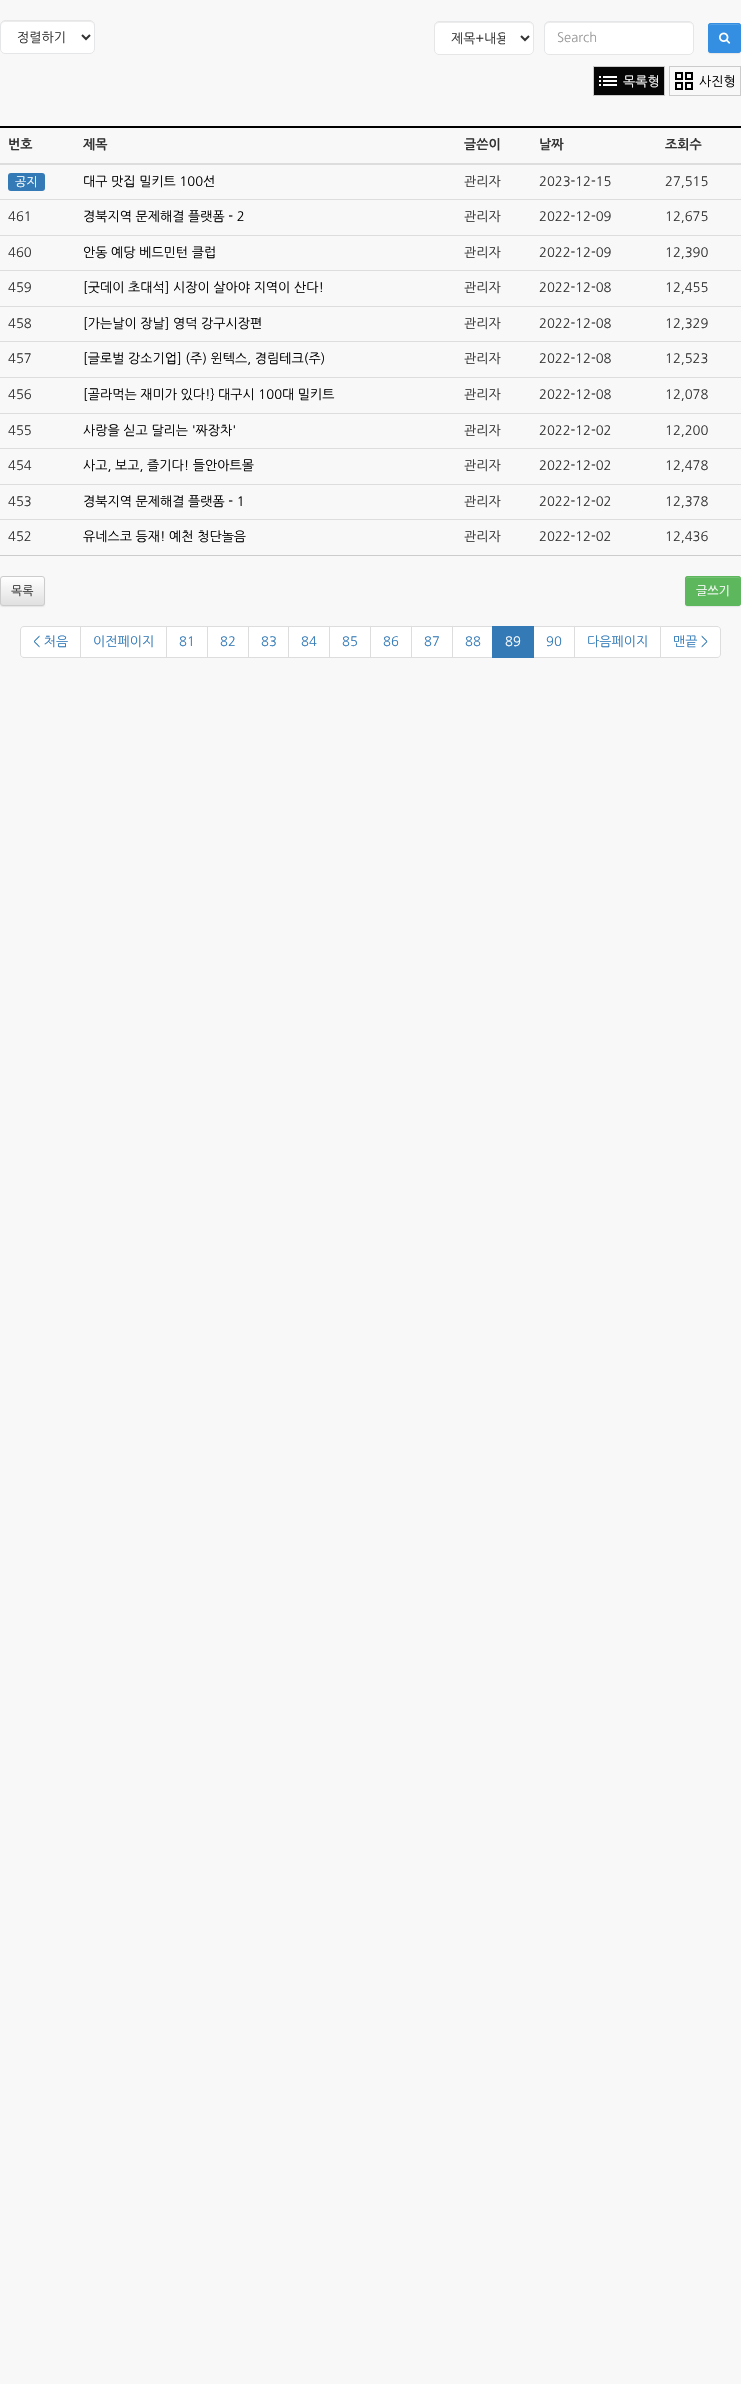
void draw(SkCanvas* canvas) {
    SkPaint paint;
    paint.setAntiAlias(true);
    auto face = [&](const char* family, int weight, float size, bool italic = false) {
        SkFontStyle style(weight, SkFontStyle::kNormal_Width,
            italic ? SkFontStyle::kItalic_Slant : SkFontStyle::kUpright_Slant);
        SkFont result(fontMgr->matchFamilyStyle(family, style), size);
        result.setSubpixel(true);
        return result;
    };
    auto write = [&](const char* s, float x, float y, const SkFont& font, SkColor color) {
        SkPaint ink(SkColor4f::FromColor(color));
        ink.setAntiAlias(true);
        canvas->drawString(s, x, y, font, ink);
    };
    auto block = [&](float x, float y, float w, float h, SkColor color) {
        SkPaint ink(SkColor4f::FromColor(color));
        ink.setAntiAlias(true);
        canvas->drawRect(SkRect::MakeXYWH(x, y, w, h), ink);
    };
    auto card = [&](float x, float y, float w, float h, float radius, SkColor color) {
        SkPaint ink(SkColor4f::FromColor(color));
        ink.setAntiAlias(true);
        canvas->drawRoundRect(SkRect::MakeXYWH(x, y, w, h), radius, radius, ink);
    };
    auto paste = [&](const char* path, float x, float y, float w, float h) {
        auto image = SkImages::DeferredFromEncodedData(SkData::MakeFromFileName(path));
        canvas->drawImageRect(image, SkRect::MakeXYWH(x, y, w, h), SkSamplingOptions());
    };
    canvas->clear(SkColorSetRGB(248, 248, 248));
    card(0, 20, 95, 34, 5, SK_ColorWHITE);
    paint.setColor(SkColorSetRGB(236, 236, 236));
    canvas->drawPath(SkPathBuilder().moveTo(5, 22).lineTo(90, 22).cubicTo(92, 22, 94, 24, 94, 26).cubicTo(94, 17, 80, 21, 76, 21).lineTo(19, 21).cubicTo(15, 21, 1, 17, 1, 26).cubicTo(1, 24, 3, 22, 5, 22).close().detach(), paint);
    paint.setStyle(SkPaint::kStroke_Style);
    paint.setStrokeWidth(1);
    paint.setColor(SkColorSetRGB(229, 230, 231));
    canvas->drawRoundRect(SkRect::MakeXYWH(0.5f, 20.5f, 94, 33), 4.5f, 4.5f, paint);
    paint.setStrokeWidth(2);
    paint.setColor(SkColorSetRGB(51, 51, 51));
    canvas->drawPath(SkPathBuilder().moveTo(82, 35).lineTo(86, 39).lineTo(90, 35).detach(), paint);
    auto kFont1 = face("NanumGothic", 400, 13);
    write("정렬하기", 17, 42, kFont1, SkColorSetRGB(51, 51, 51));
    card(434, 21, 100, 34, 5, SK_ColorWHITE);
    paint.setStyle(SkPaint::kFill_Style);
    paint.setColor(SkColorSetRGB(236, 236, 236));
    canvas->drawPath(SkPathBuilder().moveTo(439, 23).lineTo(529, 23).cubicTo(531, 23, 533, 25, 533, 27).cubicTo(533, 18, 518, 22, 514, 22).lineTo(454, 22).cubicTo(450, 22, 435, 18, 435, 27).cubicTo(435, 25, 437, 23, 439, 23).close().detach(), paint);
    paint.setStyle(SkPaint::kStroke_Style);
    paint.setStrokeWidth(1);
    paint.setColor(SkColorSetRGB(229, 230, 231));
    canvas->drawRoundRect(SkRect::MakeXYWH(434.5f, 21.5f, 99, 33), 4.5f, 4.5f, paint);
    paint.setStrokeWidth(2);
    paint.setColor(SkColorSetRGB(51, 51, 51));
    canvas->drawPath(SkPathBuilder().moveTo(521, 36).lineTo(525, 40).lineTo(529, 36).detach(), paint);
    canvas->save();
    canvas->clipRect(SkRect::MakeXYWH(451, 31, 54, 15));
    write("제목+내용", 451, 43, kFont1, SkColorSetRGB(51, 51, 51));
    canvas->restore();
    card(544, 21, 150, 34, 5, SK_ColorWHITE);
    paint.setStyle(SkPaint::kFill_Style);
    paint.setColor(SkColorSetRGB(236, 236, 236));
    canvas->drawPath(SkPathBuilder().moveTo(549, 23).lineTo(689, 23).cubicTo(691, 23, 693, 25, 693, 27).cubicTo(693, 25, 692, 23, 690, 22).lineTo(549, 22).cubicTo(546, 22, 545, 24, 545, 27).cubicTo(545, 25, 547, 23, 549, 23).close().detach(), paint);
    paint.setStyle(SkPaint::kStroke_Style);
    paint.setStrokeWidth(1);
    paint.setColor(SkColorSetRGB(229, 230, 231));
    canvas->drawRoundRect(SkRect::MakeXYWH(544.5f, 21.5f, 149, 33), 4.5f, 4.5f, paint);
    write("Search", 557, 42, kFont1, SkColorSetRGB(153, 153, 153));
    paint.setStyle(SkPaint::kFill_Style);
    paint.setColor(SkColorSetARGB(18, 0, 0, 0));
    paint.setMaskFilter(SkMaskFilter::MakeBlur(kNormal_SkBlurStyle, 0.5f));
    canvas->drawRoundRect(SkRect::MakeXYWH(708, 24, 33, 30), 3, 3, paint);
    paint.setMaskFilter(nullptr);
    card(708, 23, 33, 30, 3, SkColorSetRGB(52, 143, 226));
    paint.setColor(SkColorSetRGB(82, 160, 230));
    canvas->drawPath(SkPathBuilder().moveTo(711, 25).lineTo(738, 25).cubicTo(739, 25, 740, 26, 740, 27).cubicTo(740, 23, 737, 24, 733.5f, 24).lineTo(715.5f, 24).cubicTo(712, 24, 709, 23, 709, 27).cubicTo(709, 26, 710, 25, 711, 25).close().detach(), paint);
    paint.setStyle(SkPaint::kStroke_Style);
    paint.setColor(SkColorSetRGB(52, 143, 226));
    canvas->drawRoundRect(SkRect::MakeXYWH(708.5f, 23.5f, 32, 29), 2.5f, 2.5f, paint);
    paste("pic1.png", 719, 32, 12, 12);
    paint.setStyle(SkPaint::kFill_Style);
    paint.setColor(SkColorSetRGB(6, 6, 6));
    canvas->drawRect(SkRect::MakeXYWH(593.5f, 66.5f, 71, 29), paint);
    paint.setStyle(SkPaint::kStroke_Style);
    paint.setColor(SkColorSetRGB(203, 203, 203));
    canvas->drawRect(SkRect::MakeXYWH(593.5f, 66.5f, 71, 29), paint);
    paste("pic2.png", 599, 76, 18, 10);
    write("목록형", 623, 86, kFont1, SK_ColorWHITE);
    canvas->drawRect(SkRect::MakeXYWH(669.5f, 66.5f, 71, 29), paint);
    paste("pic3.png", 675, 72, 18, 18);
    write("사진형", 699, 86, kFont1, SK_ColorBLACK);
    block(0, 555, 741, 1, SkColorSetRGB(204, 204, 204));
    block(0, 126, 741, 2, SK_ColorBLACK);
    auto kFont2 = face("NanumGothic", 700, 13);
    write("번호", 8, 149, kFont2, SkColorSetRGB(51, 51, 51));
    write("제목", 83, 149, kFont2, SkColorSetRGB(51, 51, 51));
    write("글쓴이", 464, 149, kFont2, SkColorSetRGB(51, 51, 51));
    write("날짜", 539, 149, kFont2, SkColorSetRGB(51, 51, 51));
    block(0, 163, 741, 2, SkColorSetRGB(221, 221, 221));
    write("조회수", 665, 149, kFont2, SkColorSetRGB(51, 51, 51));
    card(8, 173, 37, 18, 3, SkColorSetRGB(51, 122, 183));
    auto kFont3 = face("NanumGothic", 400, 12);
    write("공지", 15, 186, kFont3, SK_ColorWHITE);
    write("대구 맛집 밀키트 100선", 83, 186, kFont1, SK_ColorBLACK);
    write("관리자", 464, 186, kFont1, SkColorSetRGB(51, 51, 51));
    write("2023-12-15", 539, 186, kFont1, SkColorSetRGB(51, 51, 51));
    write("27,515", 665, 186, kFont1, SkColorSetRGB(51, 51, 51));
    write("461", 8, 221, kFont1, SkColorSetRGB(51, 51, 51));
    write("경북지역 문제해결 플랫폼 - 2", 83, 221, kFont1, SK_ColorBLACK);
    write("관리자", 464, 221, kFont1, SkColorSetRGB(51, 51, 51));
    write("2022-12-09", 539, 221, kFont1, SkColorSetRGB(51, 51, 51));
    block(0, 199, 741, 1, SkColorSetRGB(221, 221, 221));
    write("12,675", 665, 221, kFont1, SkColorSetRGB(51, 51, 51));
    write("460", 8, 257, kFont1, SkColorSetRGB(51, 51, 51));
    write("안동 예당 베드민턴 클럽", 83, 257, kFont1, SK_ColorBLACK);
    write("관리자", 464, 257, kFont1, SkColorSetRGB(51, 51, 51));
    write("2022-12-09", 539, 257, kFont1, SkColorSetRGB(51, 51, 51));
    block(0, 235, 741, 1, SkColorSetRGB(221, 221, 221));
    write("12,390", 665, 257, kFont1, SkColorSetRGB(51, 51, 51));
    write("459", 8, 292, kFont1, SkColorSetRGB(51, 51, 51));
    write("[굿데이 초대석] 시장이 살아야 지역이 산다!", 83, 292, kFont1, SK_ColorBLACK);
    write("관리자", 464, 292, kFont1, SkColorSetRGB(51, 51, 51));
    write("2022-12-08", 539, 292, kFont1, SkColorSetRGB(51, 51, 51));
    block(0, 270, 741, 1, SkColorSetRGB(221, 221, 221));
    write("12,455", 665, 292, kFont1, SkColorSetRGB(51, 51, 51));
    write("458", 8, 328, kFont1, SkColorSetRGB(51, 51, 51));
    write("[가는날이 장날] 영덕 강구시장편", 83, 328, kFont1, SK_ColorBLACK);
    write("관리자", 464, 328, kFont1, SkColorSetRGB(51, 51, 51));
    write("2022-12-08", 539, 328, kFont1, SkColorSetRGB(51, 51, 51));
    block(0, 306, 741, 1, SkColorSetRGB(221, 221, 221));
    write("12,329", 665, 328, kFont1, SkColorSetRGB(51, 51, 51));
    write("457", 8, 363, kFont1, SkColorSetRGB(51, 51, 51));
    write("[글로벌 강소기업] (주) 윈텍스, 경림테크(주)", 83, 363, kFont1, SK_ColorBLACK);
    write("관리자", 464, 363, kFont1, SkColorSetRGB(51, 51, 51));
    write("2022-12-08", 539, 363, kFont1, SkColorSetRGB(51, 51, 51));
    block(0, 341, 741, 1, SkColorSetRGB(221, 221, 221));
    write("12,523", 665, 363, kFont1, SkColorSetRGB(51, 51, 51));
    write("456", 8, 399, kFont1, SkColorSetRGB(51, 51, 51));
    write("[골라먹는 재미가 있다!} 대구시 100대 밀키트", 83, 399, kFont1, SK_ColorBLACK);
    write("관리자", 464, 399, kFont1, SkColorSetRGB(51, 51, 51));
    write("2022-12-08", 539, 399, kFont1, SkColorSetRGB(51, 51, 51));
    block(0, 377, 741, 1, SkColorSetRGB(221, 221, 221));
    write("12,078", 665, 399, kFont1, SkColorSetRGB(51, 51, 51));
    write("455", 8, 435, kFont1, SkColorSetRGB(51, 51, 51));
    write("사랑을 싣고 달리는 '짜장차'", 83, 435, kFont1, SK_ColorBLACK);
    write("관리자", 464, 435, kFont1, SkColorSetRGB(51, 51, 51));
    write("2022-12-02", 539, 435, kFont1, SkColorSetRGB(51, 51, 51));
    block(0, 413, 741, 1, SkColorSetRGB(221, 221, 221));
    write("12,200", 665, 435, kFont1, SkColorSetRGB(51, 51, 51));
    write("454", 8, 470, kFont1, SkColorSetRGB(51, 51, 51));
    write("사고, 보고, 즐기다! 들안아트몰", 83, 470, kFont1, SK_ColorBLACK);
    write("관리자", 464, 470, kFont1, SkColorSetRGB(51, 51, 51));
    write("2022-12-02", 539, 470, kFont1, SkColorSetRGB(51, 51, 51));
    block(0, 448, 741, 1, SkColorSetRGB(221, 221, 221));
    write("12,478", 665, 470, kFont1, SkColorSetRGB(51, 51, 51));
    write("453", 8, 506, kFont1, SkColorSetRGB(51, 51, 51));
    write("경북지역 문제해결 플랫폼 - 1", 83, 506, kFont1, SK_ColorBLACK);
    write("관리자", 464, 506, kFont1, SkColorSetRGB(51, 51, 51));
    write("2022-12-02", 539, 506, kFont1, SkColorSetRGB(51, 51, 51));
    block(0, 484, 741, 1, SkColorSetRGB(221, 221, 221));
    write("12,378", 665, 506, kFont1, SkColorSetRGB(51, 51, 51));
    write("452", 8, 541, kFont1, SkColorSetRGB(51, 51, 51));
    write("유네스코 등재! 예천 청단놀음", 83, 541, kFont1, SK_ColorBLACK);
    write("관리자", 464, 541, kFont1, SkColorSetRGB(51, 51, 51));
    write("2022-12-02", 539, 541, kFont1, SkColorSetRGB(51, 51, 51));
    block(0, 519, 741, 1, SkColorSetRGB(221, 221, 221));
    write("12,436", 665, 541, kFont1, SkColorSetRGB(51, 51, 51));
    paint.setStyle(SkPaint::kFill_Style);
    paint.setColor(SkColorSetARGB(18, 0, 0, 0));
    paint.setMaskFilter(SkMaskFilter::MakeBlur(kNormal_SkBlurStyle, 0.5f));
    canvas->drawRoundRect(SkRect::MakeXYWH(0, 577, 45, 30), 3, 3, paint);
    paint.setMaskFilter(nullptr);
    canvas->save();
    canvas->clipPath(SkPathBuilder().moveTo(3, 576).lineTo(42, 576).cubicTo(43.5f, 576, 45, 577.5f, 45, 579).lineTo(45, 603).cubicTo(45, 604.5f, 43.5f, 606, 42, 606).lineTo(3, 606).cubicTo(1.5f, 606, 0, 604.5f, 0, 603).lineTo(0, 579).cubicTo(0, 577.5f, 1.5f, 576, 3, 576).close().detach(), true);
    {
        const SkColor colors[] = {SK_ColorWHITE, SkColorSetRGB(224, 224, 224)};
        const float stops[] = {0, 1};
        const SkPoint ends[] = {{23, 577}, {23, 605}};
        paint.setShader(SkGradientShader::MakeLinear(ends, colors, stops, 2, SkTileMode::kClamp));
        paint.setAlpha(255);
    }
    canvas->drawRect(SkRect::MakeXYWH(0, 577, 45, 28), paint);
    canvas->restore();
    paint.setStyle(SkPaint::kStroke_Style);
    paint.setShader(nullptr);
    paint.setColor(SkColorSetRGB(204, 204, 204));
    canvas->drawRoundRect(SkRect::MakeXYWH(0.5f, 576.5f, 44, 29), 2.5f, 2.5f, paint);
    write("목록", 11, 595, kFont3, SkColorSetRGB(51, 51, 51));
    paint.setStyle(SkPaint::kFill_Style);
    paint.setColor(SkColorSetARGB(18, 0, 0, 0));
    paint.setMaskFilter(SkMaskFilter::MakeBlur(kNormal_SkBlurStyle, 0.5f));
    canvas->drawRoundRect(SkRect::MakeXYWH(685, 577, 56, 30), 3, 3, paint);
    paint.setMaskFilter(nullptr);
    card(685, 576, 56, 30, 3, SkColorSetRGB(93, 183, 93));
    paint.setColor(SkColorSetRGB(117, 194, 117));
    canvas->drawPath(SkPathBuilder().moveTo(688, 578).lineTo(738, 578).cubicTo(739, 578, 740, 579, 740, 580).cubicTo(740, 575, 734, 577, 730, 577).lineTo(696, 577).cubicTo(692, 577, 686, 575, 686, 580).cubicTo(686, 579, 687, 578, 688, 578).close().detach(), paint);
    paint.setStyle(SkPaint::kStroke_Style);
    paint.setColor(SkColorSetRGB(93, 183, 93));
    canvas->drawRoundRect(SkRect::MakeXYWH(685.5f, 576.5f, 55, 29), 2.5f, 2.5f, paint);
    write("글쓰기", 696, 595, kFont3, SK_ColorWHITE);
    paint.setStyle(SkPaint::kFill_Style);
    paint.setColor(SK_ColorWHITE);
    canvas->drawPath(SkPathBuilder().moveTo(24, 626.5f).lineTo(80.5f, 626.5f).lineTo(80.5f, 657.5f).lineTo(24, 657.5f).cubicTo(22, 657.5f, 20.5f, 656, 20.5f, 654).lineTo(20.5f, 630).cubicTo(20.5f, 628, 22, 626.5f, 24, 626.5f).close().detach(), paint);
    paint.setStyle(SkPaint::kStroke_Style);
    paint.setColor(SkColorSetRGB(221, 221, 221));
    canvas->drawPath(SkPathBuilder().moveTo(24, 626.5f).lineTo(80.5f, 626.5f).lineTo(80.5f, 657.5f).lineTo(24, 657.5f).cubicTo(22, 657.5f, 20.5f, 656, 20.5f, 654).lineTo(20.5f, 630).cubicTo(20.5f, 628, 22, 626.5f, 24, 626.5f).close().detach(), paint);
    write("< 처음", 33, 646, kFont1, SkColorSetRGB(51, 122, 183));
    paint.setStyle(SkPaint::kFill_Style);
    paint.setColor(SK_ColorWHITE);
    canvas->drawRect(SkRect::MakeXYWH(80.5f, 626.5f, 86, 31), paint);
    paint.setStyle(SkPaint::kStroke_Style);
    paint.setColor(SkColorSetRGB(221, 221, 221));
    canvas->drawRect(SkRect::MakeXYWH(80.5f, 626.5f, 86, 31), paint);
    write("이전페이지", 93, 646, kFont1, SkColorSetRGB(51, 122, 183));
    paint.setStyle(SkPaint::kFill_Style);
    paint.setColor(SK_ColorWHITE);
    canvas->drawRect(SkRect::MakeXYWH(166.5f, 626.5f, 41, 31), paint);
    paint.setStyle(SkPaint::kStroke_Style);
    paint.setColor(SkColorSetRGB(221, 221, 221));
    canvas->drawRect(SkRect::MakeXYWH(166.5f, 626.5f, 41, 31), paint);
    write("81", 179, 646, kFont1, SkColorSetRGB(51, 122, 183));
    paint.setStyle(SkPaint::kFill_Style);
    paint.setColor(SK_ColorWHITE);
    canvas->drawRect(SkRect::MakeXYWH(207.5f, 626.5f, 41, 31), paint);
    paint.setStyle(SkPaint::kStroke_Style);
    paint.setColor(SkColorSetRGB(221, 221, 221));
    canvas->drawRect(SkRect::MakeXYWH(207.5f, 626.5f, 41, 31), paint);
    write("82", 220, 646, kFont1, SkColorSetRGB(51, 122, 183));
    paint.setStyle(SkPaint::kFill_Style);
    paint.setColor(SK_ColorWHITE);
    canvas->drawRect(SkRect::MakeXYWH(248.5f, 626.5f, 40, 31), paint);
    paint.setStyle(SkPaint::kStroke_Style);
    paint.setColor(SkColorSetRGB(221, 221, 221));
    canvas->drawRect(SkRect::MakeXYWH(248.5f, 626.5f, 40, 31), paint);
    write("83", 261, 646, kFont1, SkColorSetRGB(51, 122, 183));
    paint.setStyle(SkPaint::kFill_Style);
    paint.setColor(SK_ColorWHITE);
    canvas->drawRect(SkRect::MakeXYWH(288.5f, 626.5f, 41, 31), paint);
    paint.setStyle(SkPaint::kStroke_Style);
    paint.setColor(SkColorSetRGB(221, 221, 221));
    canvas->drawRect(SkRect::MakeXYWH(288.5f, 626.5f, 41, 31), paint);
    write("84", 301, 646, kFont1, SkColorSetRGB(51, 122, 183));
    paint.setStyle(SkPaint::kFill_Style);
    paint.setColor(SK_ColorWHITE);
    canvas->drawRect(SkRect::MakeXYWH(329.5f, 626.5f, 41, 31), paint);
    paint.setStyle(SkPaint::kStroke_Style);
    paint.setColor(SkColorSetRGB(221, 221, 221));
    canvas->drawRect(SkRect::MakeXYWH(329.5f, 626.5f, 41, 31), paint);
    write("85", 342, 646, kFont1, SkColorSetRGB(51, 122, 183));
    paint.setStyle(SkPaint::kFill_Style);
    paint.setColor(SK_ColorWHITE);
    canvas->drawRect(SkRect::MakeXYWH(370.5f, 626.5f, 41, 31), paint);
    paint.setStyle(SkPaint::kStroke_Style);
    paint.setColor(SkColorSetRGB(221, 221, 221));
    canvas->drawRect(SkRect::MakeXYWH(370.5f, 626.5f, 41, 31), paint);
    write("86", 383, 646, kFont1, SkColorSetRGB(51, 122, 183));
    paint.setStyle(SkPaint::kFill_Style);
    paint.setColor(SK_ColorWHITE);
    canvas->drawRect(SkRect::MakeXYWH(411.5f, 626.5f, 41, 31), paint);
    paint.setStyle(SkPaint::kStroke_Style);
    paint.setColor(SkColorSetRGB(221, 221, 221));
    canvas->drawRect(SkRect::MakeXYWH(411.5f, 626.5f, 41, 31), paint);
    write("87", 424, 646, kFont1, SkColorSetRGB(51, 122, 183));
    paint.setStyle(SkPaint::kFill_Style);
    paint.setColor(SK_ColorWHITE);
    canvas->drawRect(SkRect::MakeXYWH(452.5f, 626.5f, 40, 31), paint);
    paint.setStyle(SkPaint::kStroke_Style);
    paint.setColor(SkColorSetRGB(221, 221, 221));
    canvas->drawRect(SkRect::MakeXYWH(452.5f, 626.5f, 40, 31), paint);
    write("88", 465, 646, kFont1, SkColorSetRGB(51, 122, 183));
    paint.setStyle(SkPaint::kFill_Style);
    paint.setColor(SK_ColorWHITE);
    canvas->drawRect(SkRect::MakeXYWH(533.5f, 626.5f, 41, 31), paint);
    paint.setStyle(SkPaint::kStroke_Style);
    paint.setColor(SkColorSetRGB(221, 221, 221));
    canvas->drawRect(SkRect::MakeXYWH(533.5f, 626.5f, 41, 31), paint);
    block(492, 626, 42, 32, SkColorSetRGB(51, 122, 183));
    write("89", 505, 646, kFont1, SK_ColorWHITE);
    write("90", 546, 646, kFont1, SkColorSetRGB(51, 122, 183));
    paint.setStyle(SkPaint::kFill_Style);
    paint.setColor(SK_ColorWHITE);
    canvas->drawRect(SkRect::MakeXYWH(574.5f, 626.5f, 86, 31), paint);
    paint.setStyle(SkPaint::kStroke_Style);
    paint.setColor(SkColorSetRGB(221, 221, 221));
    canvas->drawRect(SkRect::MakeXYWH(574.5f, 626.5f, 86, 31), paint);
    write("다음페이지", 587, 646, kFont1, SkColorSetRGB(51, 122, 183));
    paint.setStyle(SkPaint::kFill_Style);
    paint.setColor(SK_ColorWHITE);
    canvas->drawPath(SkPathBuilder().moveTo(660.5f, 626.5f).lineTo(717, 626.5f).cubicTo(719, 626.5f, 720.5f, 628, 720.5f, 630).lineTo(720.5f, 654).cubicTo(720.5f, 656, 719, 657.5f, 717, 657.5f).lineTo(660.5f, 657.5f).close().detach(), paint);
    paint.setStyle(SkPaint::kStroke_Style);
    paint.setColor(SkColorSetRGB(221, 221, 221));
    canvas->drawPath(SkPathBuilder().moveTo(660.5f, 626.5f).lineTo(717, 626.5f).cubicTo(719, 626.5f, 720.5f, 628, 720.5f, 630).lineTo(720.5f, 654).cubicTo(720.5f, 656, 719, 657.5f, 717, 657.5f).lineTo(660.5f, 657.5f).close().detach(), paint);
    write("맨끝 >", 673, 646, kFont1, SkColorSetRGB(51, 122, 183));
}
